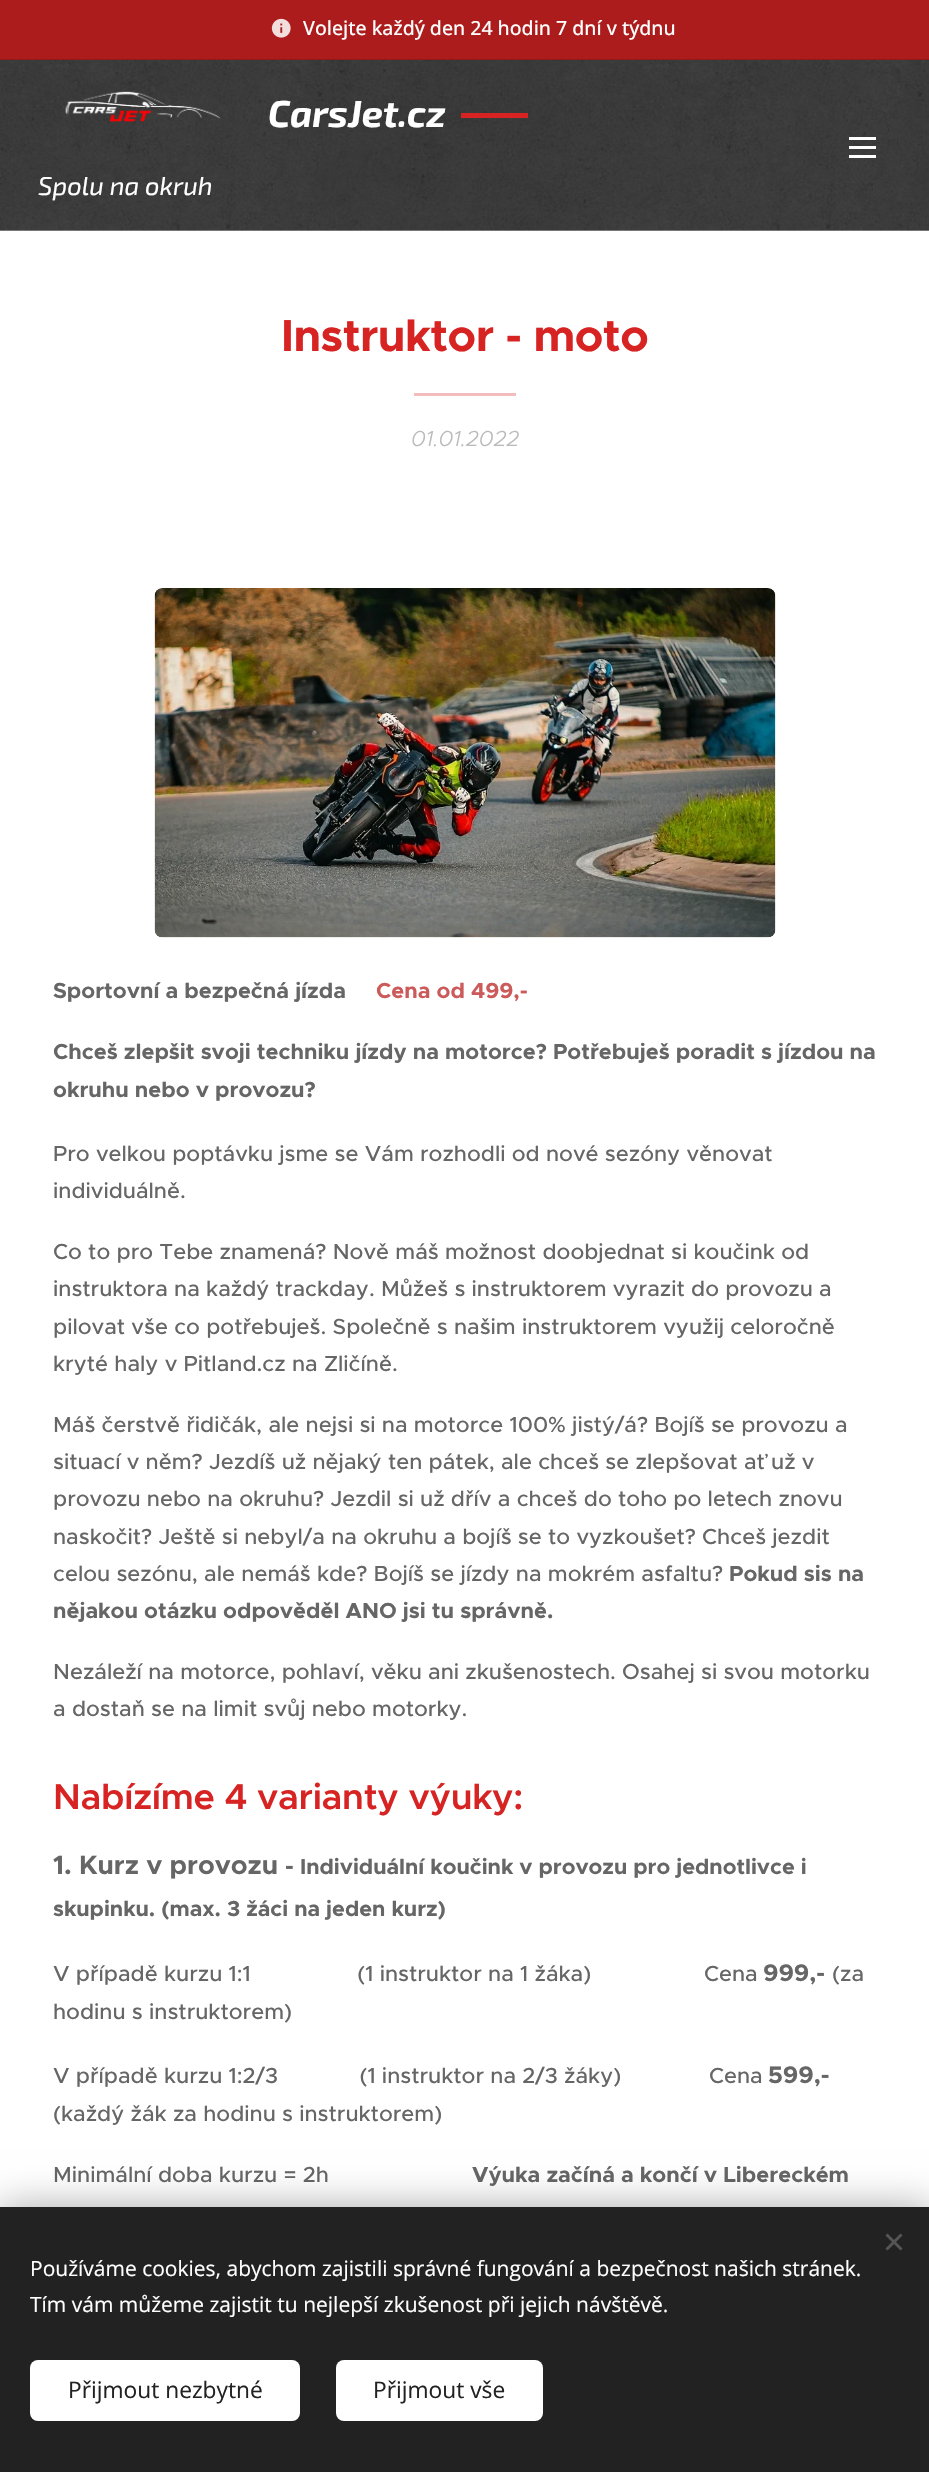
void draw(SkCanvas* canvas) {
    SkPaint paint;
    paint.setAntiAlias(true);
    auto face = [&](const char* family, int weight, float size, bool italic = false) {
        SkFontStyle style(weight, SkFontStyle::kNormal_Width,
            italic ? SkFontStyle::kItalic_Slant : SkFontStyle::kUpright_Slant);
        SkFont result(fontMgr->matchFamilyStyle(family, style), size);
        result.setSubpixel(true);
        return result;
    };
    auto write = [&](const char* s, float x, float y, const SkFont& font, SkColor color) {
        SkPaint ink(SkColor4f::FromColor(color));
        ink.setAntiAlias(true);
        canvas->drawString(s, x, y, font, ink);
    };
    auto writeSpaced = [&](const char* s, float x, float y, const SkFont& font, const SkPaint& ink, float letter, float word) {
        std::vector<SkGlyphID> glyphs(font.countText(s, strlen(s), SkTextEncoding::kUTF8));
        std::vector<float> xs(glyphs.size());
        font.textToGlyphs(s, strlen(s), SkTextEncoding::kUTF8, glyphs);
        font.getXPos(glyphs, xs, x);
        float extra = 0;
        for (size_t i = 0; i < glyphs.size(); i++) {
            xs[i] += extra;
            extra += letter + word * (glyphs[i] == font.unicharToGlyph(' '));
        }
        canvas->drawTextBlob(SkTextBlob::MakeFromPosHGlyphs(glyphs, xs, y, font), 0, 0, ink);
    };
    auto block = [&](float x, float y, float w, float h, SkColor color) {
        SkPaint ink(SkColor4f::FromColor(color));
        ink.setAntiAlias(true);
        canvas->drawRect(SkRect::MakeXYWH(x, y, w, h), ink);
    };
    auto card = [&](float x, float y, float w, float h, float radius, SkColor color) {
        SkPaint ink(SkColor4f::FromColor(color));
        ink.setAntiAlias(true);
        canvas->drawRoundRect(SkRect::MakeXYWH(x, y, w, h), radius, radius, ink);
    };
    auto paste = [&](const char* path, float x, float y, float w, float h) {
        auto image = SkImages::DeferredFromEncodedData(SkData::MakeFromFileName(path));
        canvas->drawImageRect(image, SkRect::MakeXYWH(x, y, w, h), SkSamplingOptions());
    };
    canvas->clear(SK_ColorWHITE);
    block(0, 0, 929, 59, SkColorSetRGB(173, 28, 28));
    block(0, 59, 929, 1, SkColorSetRGB(147, 24, 24));
    paste("pic1.png", 271, 18, 20, 20);
    auto kFont1 = face("Open Sans", 500, 19.5f);
    write("Volejte každý den 24 hodin 7 dní v týdnu", 303, 35, kFont1, SK_ColorWHITE);
    paste("pic2.png", 0, 60, 929, 171);
    paste("pic3.png", 65, 91, 156, 31);
    auto kFont2 = face("Exo 2", 700, 37.5f, true);
    write("CarsJet.cz", 268, 127, kFont2, SK_ColorWHITE);
    block(461, 113, 67, 5, SkColorSetRGB(216, 35, 35));
    auto kFont3 = face("Exo 2", 400, 25.75f, true);
    write("Spolu na okruh", 38, 195, kFont3, SK_ColorWHITE);
    block(849, 146, 27, 3, SK_ColorWHITE);
    block(849, 137, 27, 3, SK_ColorWHITE);
    block(849, 155, 27, 3, SK_ColorWHITE);
    block(0, 230, 929, 1, SkColorSetARGB(77, 255, 255, 255));
    auto kFont4 = face("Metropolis", 700, 45);
    paint.setColor(SkColorSetRGB(216, 35, 35));
    writeSpaced("Instruktor - moto", 281, 351, kFont4, paint, -0.5f, 0);
    block(414, 393, 102, 3, SkColorSetRGB(243, 189, 189));
    auto kFont5 = face("Metropolis", 300, 21.9f, true);
    write("01.01.2022", 411, 446, kFont5, SkColorSetRGB(186, 186, 186));
    paste("pic4.png", 154, 588, 622, 350);
    auto kFont6 = face("Metropolis", 700, 21.9f);
    write("Sportovní a bezpečná jízda", 53, 998, kFont6, SkColorSetRGB(102, 102, 102));
    write("Cena od 499,-", 376, 998, kFont6, SkColorSetRGB(204, 90, 90));
    write("Chceš zlepšit svoji techniku jízdy na motorce? Potřebuješ poradit s jízdou na", 53, 1059, kFont6, SkColorSetRGB(102, 102, 102));
    write("okruhu nebo v provozu?", 53, 1097, kFont6, SkColorSetRGB(102, 102, 102));
    auto kFont7 = face("Metropolis", 500, 21.9f);
    write("Pro velkou poptávku jsme se Vám rozhodli od nové sezóny věnovat", 53, 1161, kFont7, SkColorSetRGB(102, 102, 102));
    write("individuálně.", 53, 1198, kFont7, SkColorSetRGB(102, 102, 102));
    write("Co to pro Tebe znamená? Nově máš možnost doobjednat si koučink od", 53, 1259, kFont7, SkColorSetRGB(102, 102, 102));
    write("instruktora na každý trackday. Můžeš s instruktorem vyrazit do provozu a", 53, 1296, kFont7, SkColorSetRGB(102, 102, 102));
    write("pilovat vše co potřebuješ. Společně s našim instruktorem využij celoročně", 53, 1334, kFont7, SkColorSetRGB(102, 102, 102));
    write("kryté haly v Pitland.cz na Zličíně.", 53, 1371, kFont7, SkColorSetRGB(102, 102, 102));
    write("Máš čerstvě řidičák, ale nejsi si na motorce 100% jistý/á? Bojíš se provozu a", 53, 1432, kFont7, SkColorSetRGB(102, 102, 102));
    write("situací v něm? Jezdíš už nějaký ten pátek, ale chceš se zlepšovat ať už v", 53, 1469, kFont7, SkColorSetRGB(102, 102, 102));
    write("provozu nebo na okruhu? Jezdil si už dřív a chceš do toho po letech znovu", 53, 1506, kFont7, SkColorSetRGB(102, 102, 102));
    write("naskočit? Ještě si nebyl/a na okruhu a bojíš se to vyzkoušet? Chceš jezdit", 53, 1544, kFont7, SkColorSetRGB(102, 102, 102));
    write("celou sezónu, ale nemáš kde? Bojíš se jízdy na mokrém asfaltu?", 53, 1581, kFont7, SkColorSetRGB(102, 102, 102));
    write("Pokud sis na", 729, 1581, kFont6, SkColorSetRGB(102, 102, 102));
    write("nějakou otázku odpověděl ANO jsi tu správně.", 53, 1618, kFont6, SkColorSetRGB(102, 102, 102));
    write("Nezáleží na motorce, pohlaví, věku ani zkušenostech. Osahej si svou motorku", 53, 1679, kFont7, SkColorSetRGB(102, 102, 102));
    write("a dostaň se na limit svůj nebo motorky.", 53, 1716, kFont7, SkColorSetRGB(102, 102, 102));
    auto kFont8 = face("Metropolis", 600, 36);
    writeSpaced("Nabízíme 4 varianty výuky:", 53, 1809, kFont8, paint, -0.3f, 0);
    auto kFont9 = face("Metropolis", 700, 26.5f);
    write("1. Kurz v provozu", 53, 1874, kFont9, SkColorSetRGB(102, 102, 102));
    auto kFont10 = face("Metropolis", 700, 24);
    write("-", 285, 1874, kFont10, SkColorSetRGB(102, 102, 102));
    auto kFont11 = face("Metropolis", 700, 21.7f);
    write("Individuální koučink v provozu pro jednotlivce i", 300, 1874, kFont11, SkColorSetRGB(102, 102, 102));
    write("skupinku. (max. 3 žáci na jeden kurz)", 53, 1916, kFont11, SkColorSetRGB(102, 102, 102));
    write("V případě kurzu 1:1                 (1 instruktor na 1 žáka)                  Cena", 53, 1981, kFont7, SkColorSetRGB(102, 102, 102));
    write("999,-", 763, 1981, kFont10, SkColorSetRGB(102, 102, 102));
    write("(za", 832, 1981, kFont7, SkColorSetRGB(102, 102, 102));
    write("hodinu s instruktorem)", 53, 2019, kFont7, SkColorSetRGB(102, 102, 102));
    write("V případě kurzu 1:2/3             (1 instruktor na 2/3 žáky)              Cena", 53, 2083, kFont7, SkColorSetRGB(102, 102, 102));
    write("599,-", 768, 2083, kFont10, SkColorSetRGB(102, 102, 102));
    write("(každý žák za hodinu s instruktorem)", 53, 2121, kFont7, SkColorSetRGB(102, 102, 102));
    write("Minimální doba kurzu = 2h", 53, 2182, kFont7, SkColorSetRGB(102, 102, 102));
    write("Výuka začíná a končí v Libereckém", 472, 2182, kFont6, SkColorSetRGB(102, 102, 102));
    paint.setColor(SkColorSetARGB(84, 0, 0, 0));
    paint.setMaskFilter(SkMaskFilter::MakeBlur(kNormal_SkBlurStyle, 19));
    canvas->drawRect(SkRect::MakeXYWH(0, 2207, 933, 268), paint);
    paint.setMaskFilter(nullptr);
    block(0, 2207, 929, 265, SkColorSetRGB(34, 34, 34));
    paint.setColor(SkColorSetRGB(85, 85, 85));
    canvas->drawPath(SkPathBuilder().moveTo(885.5f, 2248.5f).lineTo(900.5f, 2233.5f).lineTo(902.5f, 2235.5f).lineTo(887.5f, 2250.5f).close().detach(), paint);
    canvas->drawPath(SkPathBuilder().moveTo(887.5f, 2233.5f).lineTo(902.5f, 2248.5f).lineTo(900.5f, 2250.5f).lineTo(885.5f, 2235.5f).close().detach(), paint);
    auto kFont12 = face("Open Sans", 400, 21);
    write("Používáme cookies, abychom zajistili správné fungování a bezpečnost našich stránek.", 30, 2276, kFont12, SK_ColorWHITE);
    write("Tím vám můžeme zajistit tu nejlepší zkušenost při jejich návštěvě.", 30, 2312, kFont12, SK_ColorWHITE);
    card(30, 2360, 270, 61, 8, SK_ColorWHITE);
    auto kFont13 = face("Open Sans", 400, 22.75f);
    write("Přijmout nezbytné", 68, 2398, kFont13, SkColorSetRGB(34, 34, 34));
    card(336, 2360, 207, 61, 8, SK_ColorWHITE);
    write("Přijmout vše", 373, 2398, kFont13, SkColorSetRGB(34, 34, 34));
}
